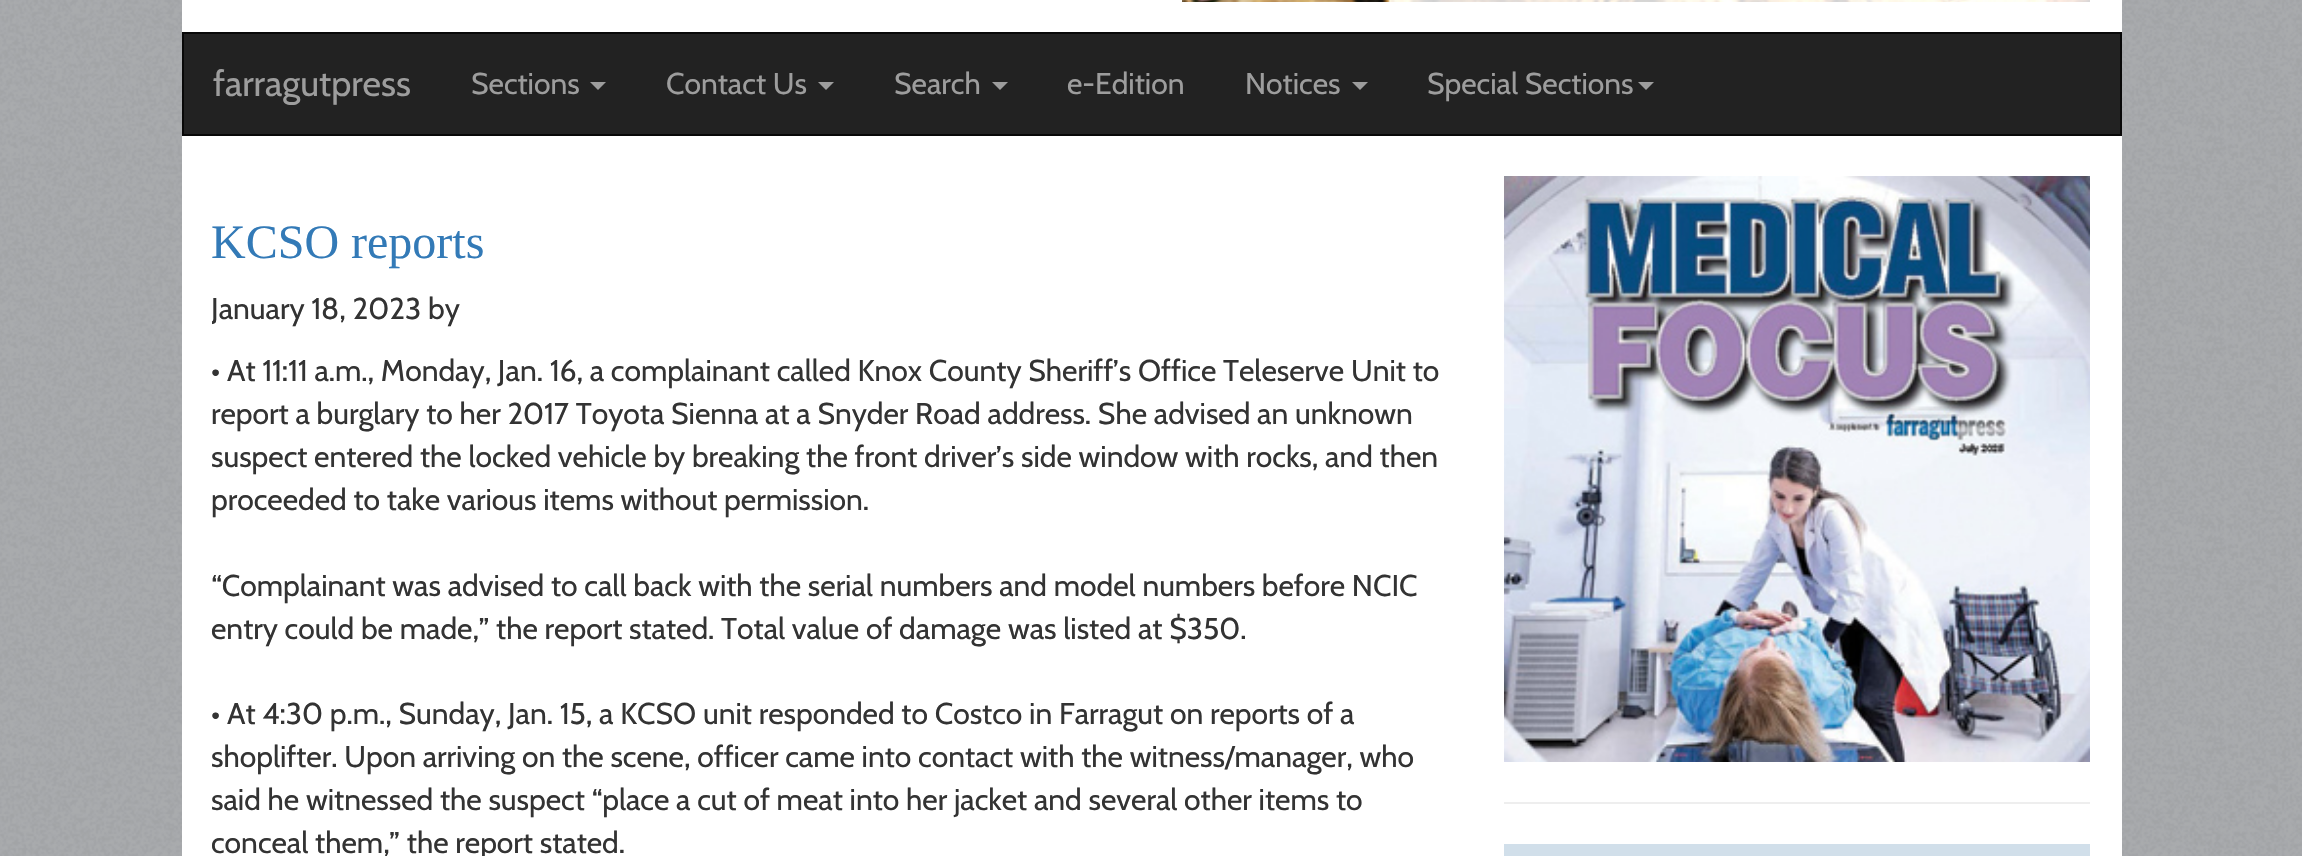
void draw(SkCanvas* canvas) {
    SkPaint paint;
    paint.setAntiAlias(true);
    auto face = [&](const char* family, int weight, float size, bool italic = false) {
        SkFontStyle style(weight, SkFontStyle::kNormal_Width,
            italic ? SkFontStyle::kItalic_Slant : SkFontStyle::kUpright_Slant);
        SkFont result(fontMgr->matchFamilyStyle(family, style), size);
        result.setSubpixel(true);
        return result;
    };
    auto write = [&](const char* s, float x, float y, const SkFont& font, SkColor color) {
        SkPaint ink(SkColor4f::FromColor(color));
        ink.setAntiAlias(true);
        canvas->drawString(s, x, y, font, ink);
    };
    auto block = [&](float x, float y, float w, float h, SkColor color) {
        SkPaint ink(SkColor4f::FromColor(color));
        ink.setAntiAlias(true);
        canvas->drawRect(SkRect::MakeXYWH(x, y, w, h), ink);
    };
    auto paste = [&](const char* path, float x, float y, float w, float h) {
        auto image = SkImages::DeferredFromEncodedData(SkData::MakeFromFileName(path));
        canvas->drawImageRect(image, SkRect::MakeXYWH(x, y, w, h), SkSamplingOptions());
    };
    canvas->clear(SkColorSetRGB(167, 169, 172));
    paste("pic1.png", 0, 0, 2302, 856);
    block(182, 0, 1940, 856, SK_ColorWHITE);
    paste("pic2.png", 1182, 0, 908, 2);
    paint.setColor(SkColorSetRGB(34, 34, 34));
    canvas->drawRect(SkRect::MakeXYWH(183, 33, 1938, 102), paint);
    paint.setStyle(SkPaint::kStroke_Style);
    paint.setStrokeWidth(2);
    paint.setColor(SkColorSetRGB(8, 8, 8));
    canvas->drawRect(SkRect::MakeXYWH(183, 33, 1938, 102), paint);
    auto kFont1 = face("Cabin", 400, 36);
    write("farragutpress", 213, 96, kFont1, SkColorSetRGB(157, 157, 157));
    auto kFont2 = face("Cabin", 400, 30);
    write("Sections", 471, 94, kFont2, SkColorSetRGB(157, 157, 157));
    paint.setStyle(SkPaint::kFill_Style);
    paint.setColor(SkColorSetRGB(157, 157, 157));
    canvas->drawPath(SkPathBuilder().moveTo(590, 82).lineTo(606, 82).lineTo(598, 90).close().detach(), paint);
    write("Contact Us", 666, 94, kFont2, SkColorSetRGB(157, 157, 157));
    canvas->drawPath(SkPathBuilder().moveTo(818, 82).lineTo(834, 82).lineTo(826, 90).close().detach(), paint);
    write("Search", 894, 94, kFont2, SkColorSetRGB(157, 157, 157));
    canvas->drawPath(SkPathBuilder().moveTo(992, 82).lineTo(1008, 82).lineTo(1000, 90).close().detach(), paint);
    write("e-Edition", 1067, 94, kFont2, SkColorSetRGB(157, 157, 157));
    write("Notices", 1245, 94, kFont2, SkColorSetRGB(157, 157, 157));
    canvas->drawPath(SkPathBuilder().moveTo(1352, 82).lineTo(1368, 82).lineTo(1360, 90).close().detach(), paint);
    write("Special Sections", 1427, 94, kFont2, SkColorSetRGB(157, 157, 157));
    canvas->drawPath(SkPathBuilder().moveTo(1638, 82).lineTo(1654, 82).lineTo(1646, 90).close().detach(), paint);
    auto kFont3 = face("Liberation Serif", 400, 48);
    write("KCSO reports", 211, 258, kFont3, SkColorSetRGB(51, 122, 183));
    canvas->save();
    canvas->clipRect(SkRect::MakeXYWH(212, 176, 1232, 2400));
    write("January 18, 2023", 211, 319, kFont2, SkColorSetRGB(51, 51, 51));
    canvas->restore();
    write("by", 428, 319, kFont2, SkColorSetRGB(51, 51, 51));
    write("• At 11:11 a.m., Monday, Jan. 16, a complainant called Knox County Sheriff’s Office Teleserve Unit to", 211, 381, kFont2, SkColorSetRGB(51, 51, 51));
    write("report a burglary to her 2017 Toyota Sienna at a Snyder Road address. She advised an unknown", 211, 424, kFont2, SkColorSetRGB(51, 51, 51));
    write("suspect entered the locked vehicle by breaking the front driver’s side window with rocks, and then", 211, 467, kFont2, SkColorSetRGB(51, 51, 51));
    write("proceeded to take various items without permission.", 211, 510, kFont2, SkColorSetRGB(51, 51, 51));
    write("“Complainant was advised to call back with the serial numbers and model numbers before NCIC", 211, 596, kFont2, SkColorSetRGB(51, 51, 51));
    write("entry could be made,” the report stated. Total value of damage was listed at $350.", 211, 639, kFont2, SkColorSetRGB(51, 51, 51));
    write("• At 4:30 p.m., Sunday, Jan. 15, a KCSO unit responded to Costco in Farragut on reports of a", 211, 724, kFont2, SkColorSetRGB(51, 51, 51));
    write("shoplifter. Upon arriving on the scene, officer came into contact with the witness/manager, who", 211, 767, kFont2, SkColorSetRGB(51, 51, 51));
    write("said he witnessed the suspect “place a cut of meat into her jacket and several other items to", 211, 810, kFont2, SkColorSetRGB(51, 51, 51));
    write("conceal them,” the report stated.", 211, 853, kFont2, SkColorSetRGB(51, 51, 51));
    paste("pic3.png", 1504, 176, 586, 586);
    block(1504, 802, 586, 2, SkColorSetRGB(238, 238, 238));
    block(1504, 844, 586, 12, SkColorSetRGB(209, 223, 234));
}
